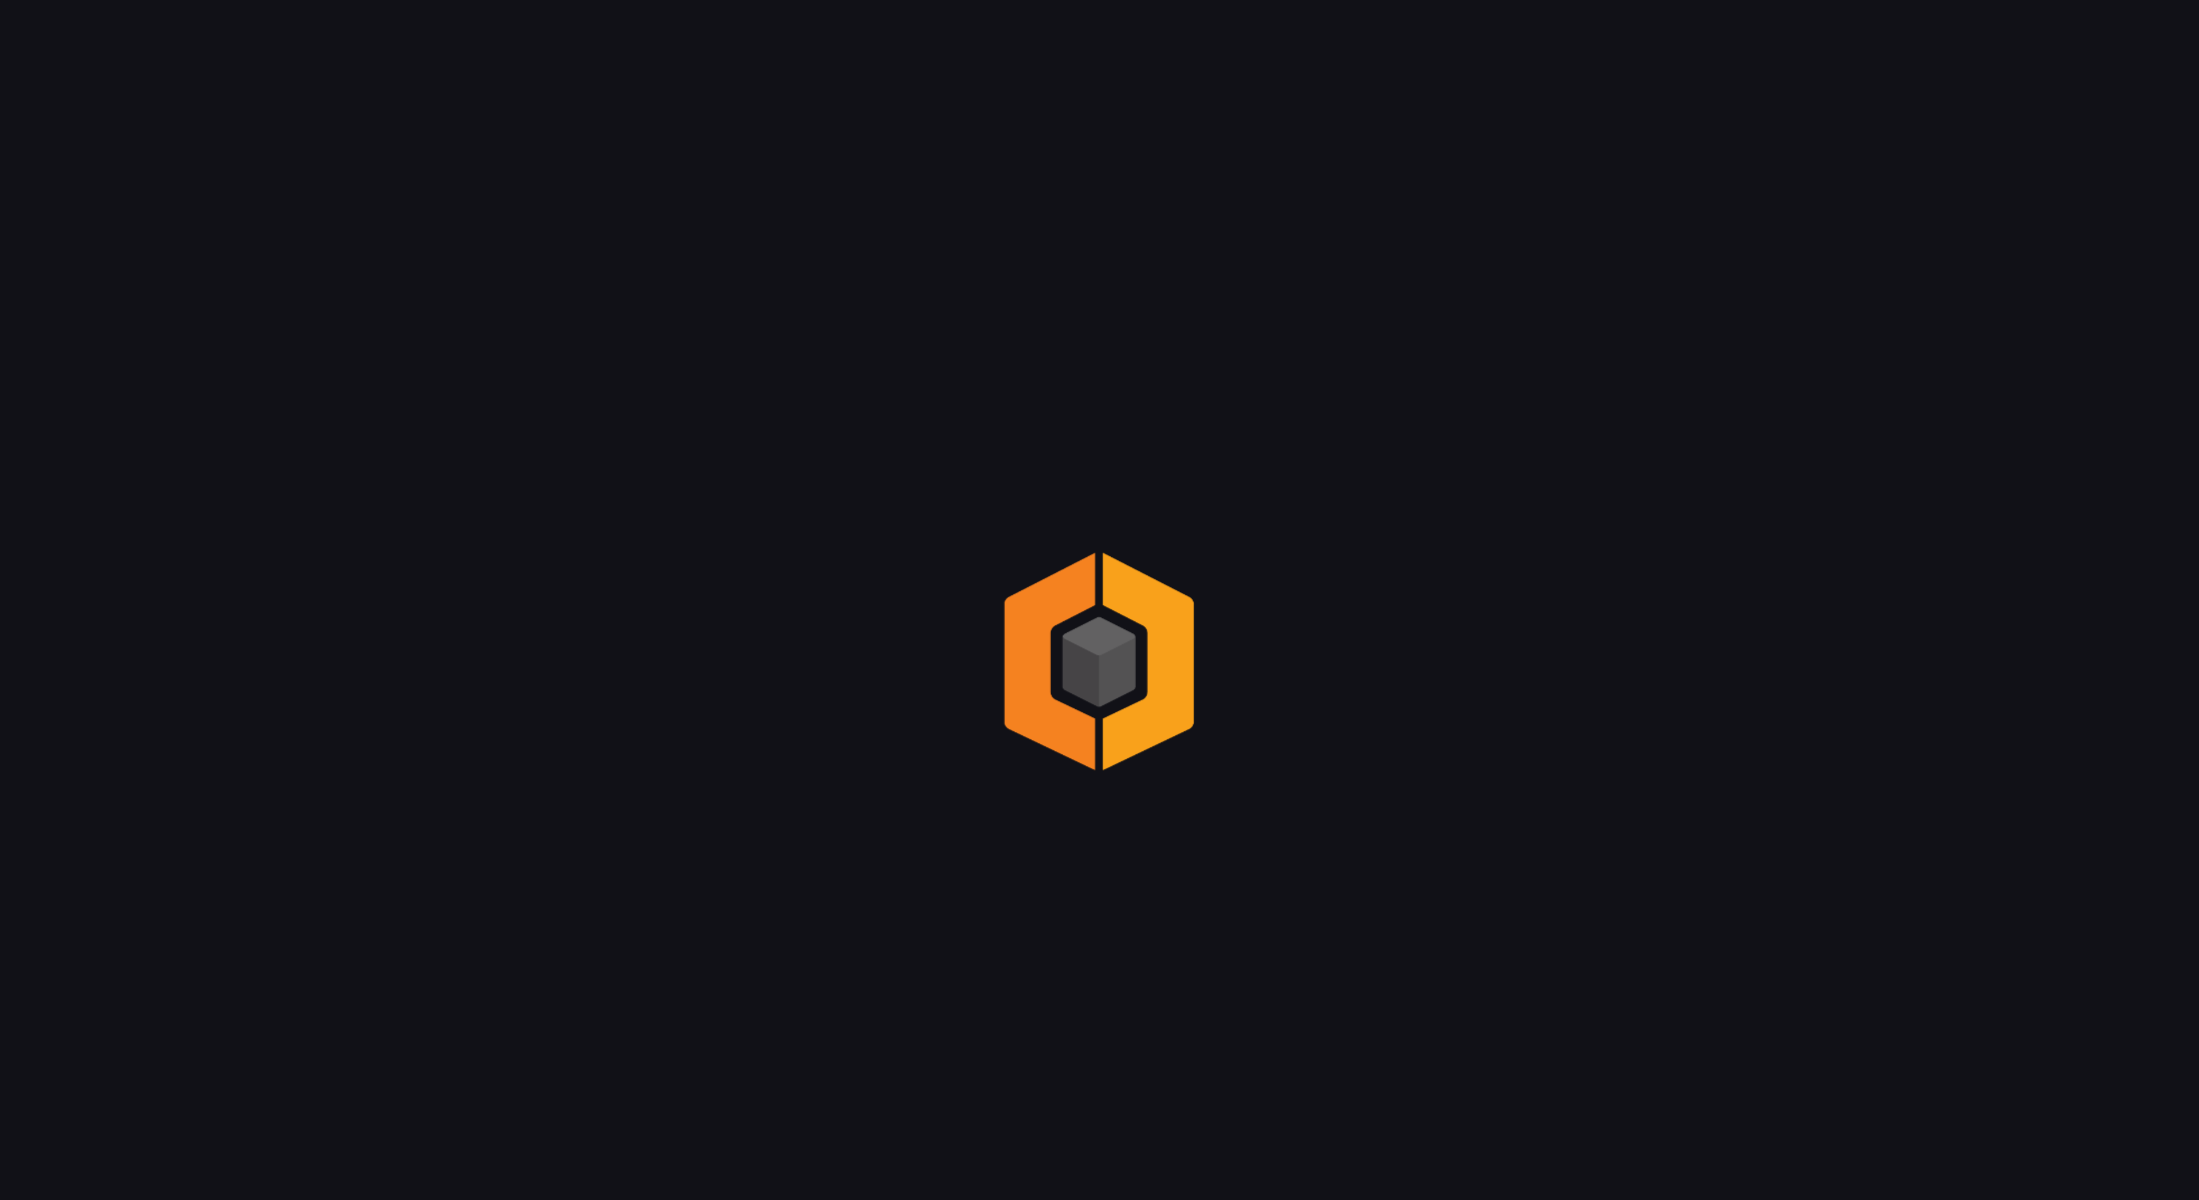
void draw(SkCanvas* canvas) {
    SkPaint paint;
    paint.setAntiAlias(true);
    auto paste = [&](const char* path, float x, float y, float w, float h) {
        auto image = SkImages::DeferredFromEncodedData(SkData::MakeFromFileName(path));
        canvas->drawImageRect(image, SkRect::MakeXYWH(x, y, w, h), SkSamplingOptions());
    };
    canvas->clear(SkColorSetRGB(17, 17, 23));
    paste("pic1.png", 1003, 552, 192, 219);
}
